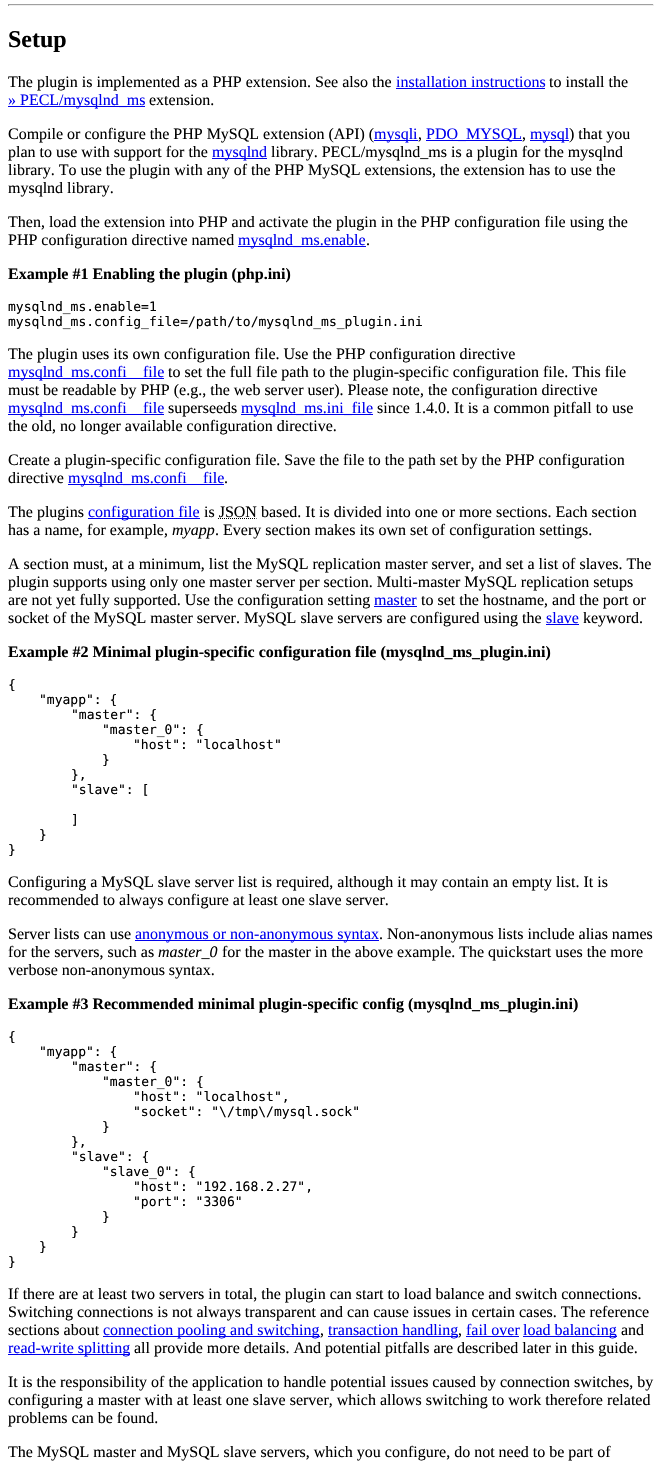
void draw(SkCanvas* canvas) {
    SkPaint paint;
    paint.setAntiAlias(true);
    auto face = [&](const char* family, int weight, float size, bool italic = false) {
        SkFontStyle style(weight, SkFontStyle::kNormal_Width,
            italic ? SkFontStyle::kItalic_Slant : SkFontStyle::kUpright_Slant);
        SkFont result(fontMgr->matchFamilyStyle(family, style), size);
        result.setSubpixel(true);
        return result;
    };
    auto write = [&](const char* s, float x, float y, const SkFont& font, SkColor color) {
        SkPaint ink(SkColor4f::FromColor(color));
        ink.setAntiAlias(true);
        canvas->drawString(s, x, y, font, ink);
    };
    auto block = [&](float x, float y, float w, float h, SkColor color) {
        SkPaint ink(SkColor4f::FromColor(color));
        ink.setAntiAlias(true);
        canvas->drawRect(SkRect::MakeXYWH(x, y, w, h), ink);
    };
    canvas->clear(SK_ColorWHITE);
    block(8, 4, 646, 1, SkColorSetRGB(159, 159, 159));
    block(653, 4, 1, 2, SkColorSetRGB(238, 238, 238));
    block(8, 5, 646, 1, SkColorSetRGB(238, 238, 238));
    block(8, 4, 1, 2, SkColorSetRGB(159, 159, 159));
    auto kFont1 = face("Liberation Serif", 700, 24);
    write("Setup", 8, 47, kFont1, SK_ColorBLACK);
    auto kFont2 = face("Liberation Serif", 400, 16);
    write("The plugin is implemented as a PHP extension. See also the", 8, 87, kFont2, SK_ColorBLACK);
    write("installation instructions", 396, 87, kFont2, SkColorSetRGB(0, 0, 238));
    block(396, 88, 149, 1, SkColorSetRGB(0, 0, 238));
    write("to install the", 549, 87, kFont2, SK_ColorBLACK);
    block(8, 106, 137, 1, SkColorSetRGB(0, 0, 238));
    write("» PECL/mysqlnd_ms", 8, 105, kFont2, SkColorSetRGB(0, 0, 238));
    write("extension.", 149, 105, kFont2, SK_ColorBLACK);
    write("Compile or configure the PHP MySQL extension (API) (", 8, 139, kFont2, SK_ColorBLACK);
    block(374, 140, 44, 1, SkColorSetRGB(0, 0, 238));
    write("mysqli", 374, 139, kFont2, SkColorSetRGB(0, 0, 238));
    write(",", 418, 139, kFont2, SK_ColorBLACK);
    block(426, 140, 96, 1, SkColorSetRGB(0, 0, 238));
    write("PDO_MYSQL", 426, 139, kFont2, SkColorSetRGB(0, 0, 238));
    write(",", 522, 139, kFont2, SK_ColorBLACK);
    block(530, 140, 39, 1, SkColorSetRGB(0, 0, 238));
    write("mysql", 530, 139, kFont2, SkColorSetRGB(0, 0, 238));
    write(") that you", 569, 139, kFont2, SK_ColorBLACK);
    write("plan to use with support for the", 8, 157, kFont2, SK_ColorBLACK);
    block(212, 158, 55, 1, SkColorSetRGB(0, 0, 238));
    write("mysqlnd", 212, 157, kFont2, SkColorSetRGB(0, 0, 238));
    write("library. PECL/mysqlnd_ms is a plugin for the mysqlnd", 271, 157, kFont2, SK_ColorBLACK);
    write("library. To use the plugin with any of the PHP MySQL extensions, the extension has to use the", 8, 175, kFont2, SK_ColorBLACK);
    write("mysqlnd library.", 8, 193, kFont2, SK_ColorBLACK);
    write("Then, load the extension into PHP and activate the plugin in the PHP configuration file using the", 8, 227, kFont2, SK_ColorBLACK);
    write("PHP configuration directive named", 8, 245, kFont2, SK_ColorBLACK);
    block(238, 246, 128, 1, SkColorSetRGB(0, 0, 238));
    write("mysqlnd_ms.enable", 238, 245, kFont2, SkColorSetRGB(0, 0, 238));
    write(".", 366, 245, kFont2, SK_ColorBLACK);
    auto kFont3 = face("Liberation Serif", 700, 16);
    write("Example #1 Enabling the plugin (php.ini)", 8, 279, kFont3, SK_ColorBLACK);
    auto kFont4 = face("DejaVu Sans Mono", 400, 13);
    write("mysqlnd_ms.enable=1", 8, 311, kFont4, SK_ColorBLACK);
    write("mysqlnd_ms.config_file=/path/to/mysqlnd_ms_plugin.ini", 8, 326, kFont4, SK_ColorBLACK);
    write("The plugin uses its own configuration file. Use the PHP configuration directive", 8, 359, kFont2, SK_ColorBLACK);
    block(8, 378, 156, 1, SkColorSetRGB(0, 0, 238));
    write("mysqlnd_ms.confi", 8, 377, kFont2, SkColorSetRGB(0, 0, 238));
    write("file", 143, 377, kFont2, SkColorSetRGB(0, 0, 238));
    write("to set the full file path to the plugin-specific configuration file. This file", 168, 377, kFont2, SK_ColorBLACK);
    write("must be readable by PHP (e.g., the web server user). Please note, the configuration directive", 8, 395, kFont2, SK_ColorBLACK);
    block(8, 414, 156, 1, SkColorSetRGB(0, 0, 238));
    write("mysqlnd_ms.confi", 8, 413, kFont2, SkColorSetRGB(0, 0, 238));
    write("file", 143, 413, kFont2, SkColorSetRGB(0, 0, 238));
    write("superseeds", 168, 413, kFont2, SK_ColorBLACK);
    block(241, 414, 132, 1, SkColorSetRGB(0, 0, 238));
    write("mysqlnd_ms.ini_file", 241, 413, kFont2, SkColorSetRGB(0, 0, 238));
    write("since 1.4.0. It is a common pitfall to use", 377, 413, kFont2, SK_ColorBLACK);
    write("the old, no longer available configuration directive.", 8, 431, kFont2, SK_ColorBLACK);
    write("Create a plugin-specific configuration file. Save the file to the path set by the PHP configuration", 8, 465, kFont2, SK_ColorBLACK);
    write("directive", 8, 483, kFont2, SK_ColorBLACK);
    block(68, 484, 156, 1, SkColorSetRGB(0, 0, 238));
    write("mysqlnd_ms.confi", 68, 483, kFont2, SkColorSetRGB(0, 0, 238));
    write("file", 203, 483, kFont2, SkColorSetRGB(0, 0, 238));
    write(".", 224, 483, kFont2, SK_ColorBLACK);
    write("The plugins", 8, 517, kFont2, SK_ColorBLACK);
    block(88, 518, 112, 1, SkColorSetRGB(0, 0, 238));
    write("configuration file", 88, 517, kFont2, SkColorSetRGB(0, 0, 238));
    write("is JSON based. It is divided into one or more sections. Each section", 204, 517, kFont2, SK_ColorBLACK);
    paint.setStyle(SkPaint::kStroke_Style);
    paint.setStrokeWidth(1);
    paint.setColor(SK_ColorBLACK);
    paint.setPathEffect(SkDashPathEffect::Make({{1, 1}}, 0));
    canvas->drawPath(SkPathBuilder().moveTo(218, 518.5f).lineTo(256.5f, 518.5f).detach(), paint);
    paint.setPathEffect(nullptr);
    write("has a name, for example,", 8, 535, kFont2, SK_ColorBLACK);
    auto kFont5 = face("Liberation Serif", 400, 16, true);
    write("myapp", 172, 535, kFont5, SK_ColorBLACK);
    write(". Every section makes its own set of configuration settings.", 215, 535, kFont2, SK_ColorBLACK);
    write("A section must, at a minimum, list the MySQL replication master server, and set a list of slaves. The", 8, 569, kFont2, SK_ColorBLACK);
    write("plugin supports using only one master server per section. Multi-master MySQL replication setups", 8, 587, kFont2, SK_ColorBLACK);
    write("are not yet fully supported. Use the configuration setting", 8, 605, kFont2, SK_ColorBLACK);
    write("master", 374, 605, kFont2, SkColorSetRGB(0, 0, 238));
    block(374, 606, 43, 1, SkColorSetRGB(0, 0, 238));
    write("to set the hostname, and the port or", 421, 605, kFont2, SK_ColorBLACK);
    write("socket of the MySQL master server. MySQL slave servers are configured using the", 8, 623, kFont2, SK_ColorBLACK);
    write("slave", 546, 623, kFont2, SkColorSetRGB(0, 0, 238));
    block(546, 624, 33, 1, SkColorSetRGB(0, 0, 238));
    write("keyword.", 583, 623, kFont2, SK_ColorBLACK);
    write("Example #2 Minimal plugin-specific configuration file (mysqlnd_ms_plugin.ini)", 8, 657, kFont3, SK_ColorBLACK);
    write("{", 8, 689, kFont4, SK_ColorBLACK);
    write("\"myapp\": {", 39, 704, kFont4, SK_ColorBLACK);
    write("\"master\": {", 71, 719, kFont4, SK_ColorBLACK);
    write("\"master_0\": {", 102, 734, kFont4, SK_ColorBLACK);
    write("\"host\": \"localhost\"", 133, 749, kFont4, SK_ColorBLACK);
    write("}", 102, 764, kFont4, SK_ColorBLACK);
    write("},", 71, 779, kFont4, SK_ColorBLACK);
    write("\"slave\": [", 71, 794, kFont4, SK_ColorBLACK);
    write("]", 71, 824, kFont4, SK_ColorBLACK);
    write("}", 39, 839, kFont4, SK_ColorBLACK);
    write("}", 8, 854, kFont4, SK_ColorBLACK);
    write("Configuring a MySQL slave server list is required, although it may contain an empty list. It is", 8, 887, kFont2, SK_ColorBLACK);
    write("recommended to always configure at least one slave server.", 8, 905, kFont2, SK_ColorBLACK);
    write("Server lists can use", 8, 939, kFont2, SK_ColorBLACK);
    block(135, 940, 244, 1, SkColorSetRGB(0, 0, 238));
    write("anonymous or non-anonymous syntax", 135, 939, kFont2, SkColorSetRGB(0, 0, 238));
    write(". Non-anonymous lists include alias names", 379, 939, kFont2, SK_ColorBLACK);
    write("for the servers, such as", 8, 957, kFont2, SK_ColorBLACK);
    write("master_0", 158, 957, kFont5, SK_ColorBLACK);
    write("for the master in the above example. The quickstart uses the more", 222, 957, kFont2, SK_ColorBLACK);
    write("verbose non-anonymous syntax.", 8, 975, kFont2, SK_ColorBLACK);
    write("Example #3 Recommended minimal plugin-specific config (mysqlnd_ms_plugin.ini)", 8, 1009, kFont3, SK_ColorBLACK);
    write("{", 8, 1041, kFont4, SK_ColorBLACK);
    write("\"myapp\": {", 39, 1056, kFont4, SK_ColorBLACK);
    write("\"master\": {", 71, 1071, kFont4, SK_ColorBLACK);
    write("\"master_0\": {", 102, 1086, kFont4, SK_ColorBLACK);
    write("\"host\": \"localhost\",", 133, 1101, kFont4, SK_ColorBLACK);
    write("\"socket\": \"\\/tmp\\/mysql.sock\"", 133, 1116, kFont4, SK_ColorBLACK);
    write("}", 102, 1131, kFont4, SK_ColorBLACK);
    write("},", 71, 1146, kFont4, SK_ColorBLACK);
    write("\"slave\": {", 71, 1161, kFont4, SK_ColorBLACK);
    write("\"slave_0\": {", 102, 1176, kFont4, SK_ColorBLACK);
    write("\"host\": \"192.168.2.27\",", 133, 1191, kFont4, SK_ColorBLACK);
    write("\"port\": \"3306\"", 133, 1206, kFont4, SK_ColorBLACK);
    write("}", 102, 1221, kFont4, SK_ColorBLACK);
    write("}", 71, 1236, kFont4, SK_ColorBLACK);
    write("}", 39, 1251, kFont4, SK_ColorBLACK);
    write("}", 8, 1266, kFont4, SK_ColorBLACK);
    write("If there are at least two servers in total, the plugin can start to load balance and switch connections.", 8, 1299, kFont2, SK_ColorBLACK);
    write("Switching connections is not always transparent and can cause issues in certain cases. The reference", 8, 1317, kFont2, SK_ColorBLACK);
    write("sections about", 8, 1335, kFont2, SK_ColorBLACK);
    block(103, 1336, 217, 1, SkColorSetRGB(0, 0, 238));
    write("connection pooling and switching", 103, 1335, kFont2, SkColorSetRGB(0, 0, 238));
    write(",", 320, 1335, kFont2, SK_ColorBLACK);
    block(328, 1336, 130, 1, SkColorSetRGB(0, 0, 238));
    write("transaction handling", 328, 1335, kFont2, SkColorSetRGB(0, 0, 238));
    write(",", 458, 1335, kFont2, SK_ColorBLACK);
    write("fail over", 466, 1335, kFont2, SkColorSetRGB(0, 0, 238));
    block(466, 1336, 53, 1, SkColorSetRGB(0, 0, 238));
    block(523, 1336, 94, 1, SkColorSetRGB(0, 0, 238));
    write("load balancing", 523, 1335, kFont2, SkColorSetRGB(0, 0, 238));
    write("and", 621, 1335, kFont2, SK_ColorBLACK);
    block(8, 1354, 122, 1, SkColorSetRGB(0, 0, 238));
    write("read-write splitting", 8, 1353, kFont2, SkColorSetRGB(0, 0, 238));
    write("all provide more details. And potential pitfalls are described later in this guide.", 134, 1353, kFont2, SK_ColorBLACK);
    write("It is the responsibility of the application to handle potential issues caused by connection switches, by", 8, 1387, kFont2, SK_ColorBLACK);
    write("configuring a master with at least one slave server, which allows switching to work therefore related", 8, 1405, kFont2, SK_ColorBLACK);
    write("problems can be found.", 8, 1423, kFont2, SK_ColorBLACK);
    write("The MySQL master and MySQL slave servers, which you configure, do not need to be part of", 8, 1457, kFont2, SK_ColorBLACK);
}
